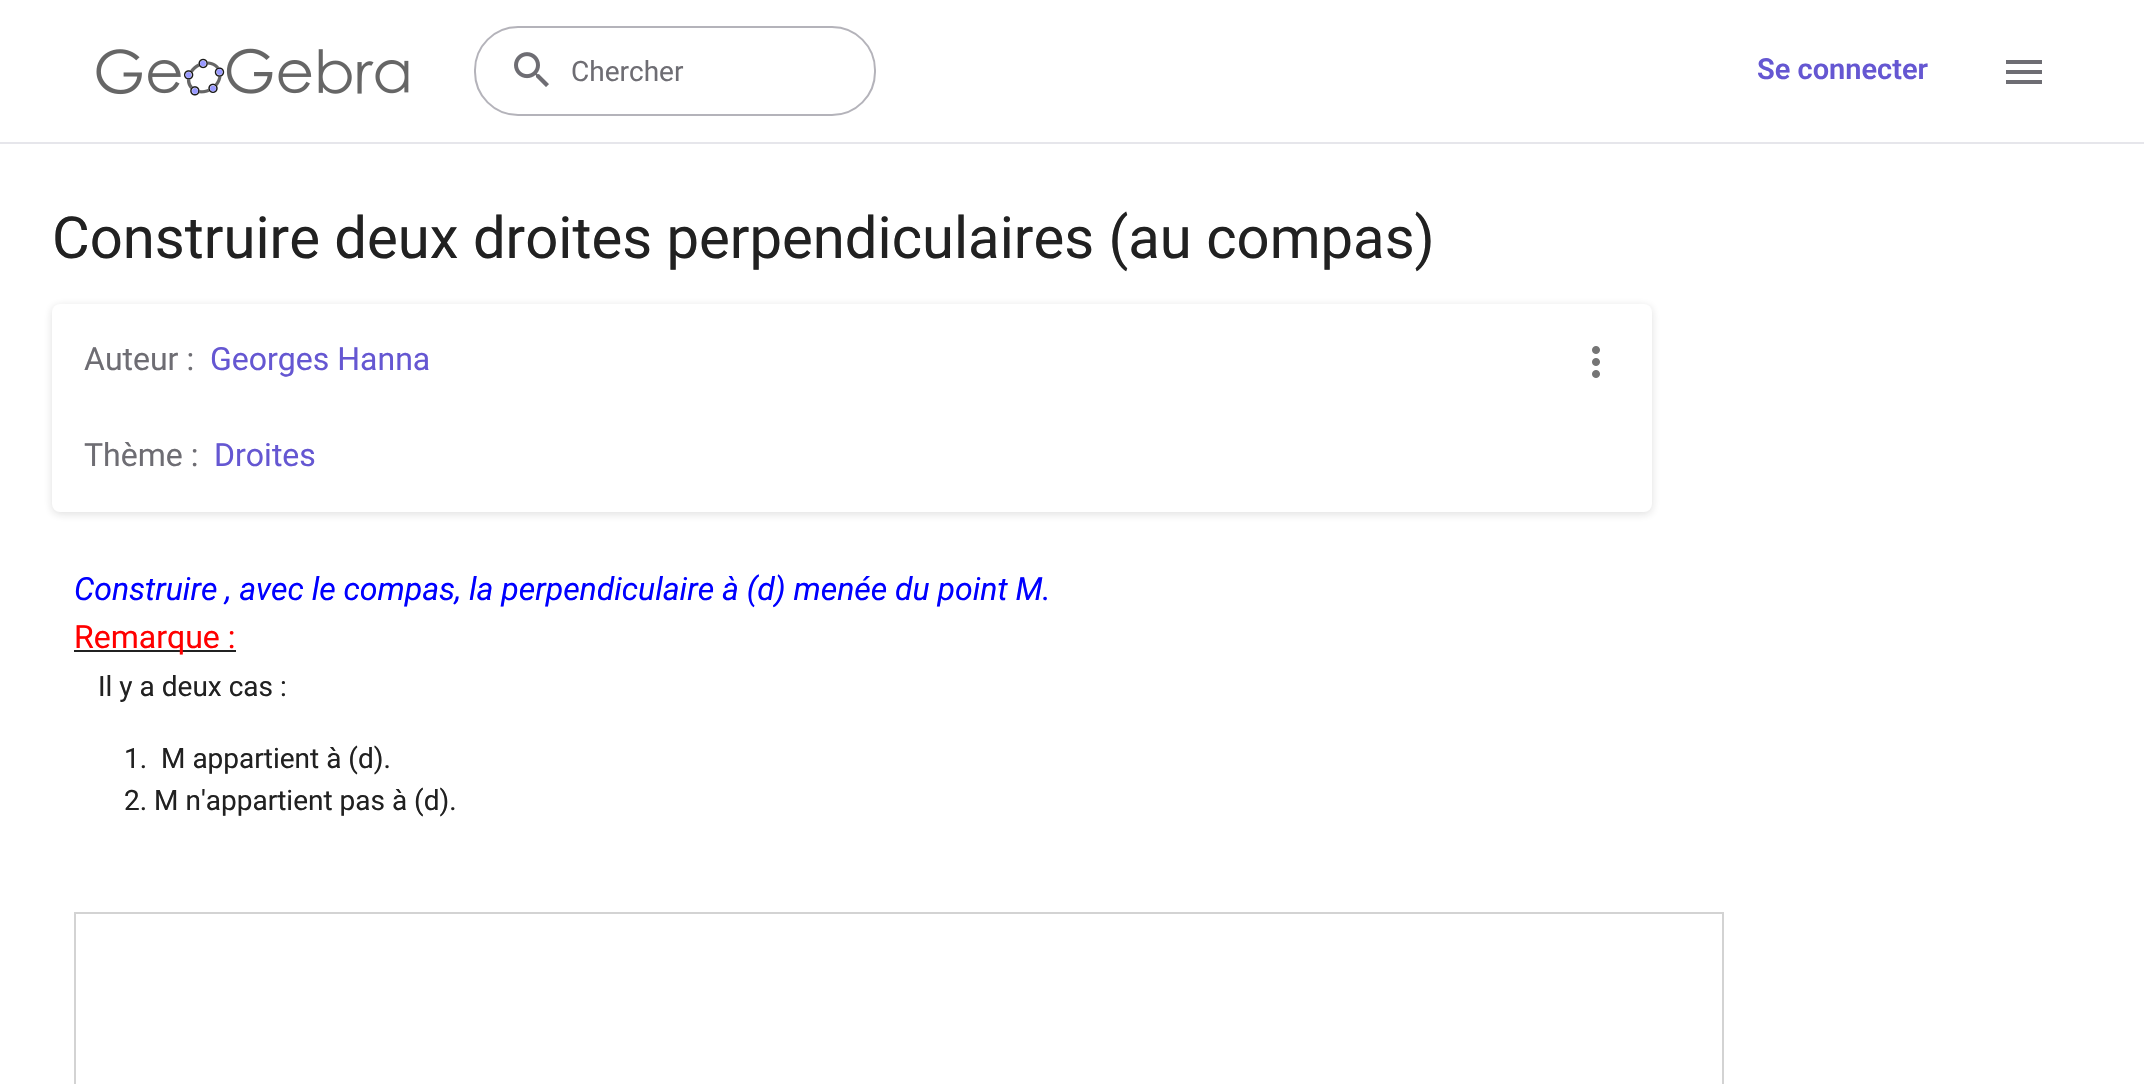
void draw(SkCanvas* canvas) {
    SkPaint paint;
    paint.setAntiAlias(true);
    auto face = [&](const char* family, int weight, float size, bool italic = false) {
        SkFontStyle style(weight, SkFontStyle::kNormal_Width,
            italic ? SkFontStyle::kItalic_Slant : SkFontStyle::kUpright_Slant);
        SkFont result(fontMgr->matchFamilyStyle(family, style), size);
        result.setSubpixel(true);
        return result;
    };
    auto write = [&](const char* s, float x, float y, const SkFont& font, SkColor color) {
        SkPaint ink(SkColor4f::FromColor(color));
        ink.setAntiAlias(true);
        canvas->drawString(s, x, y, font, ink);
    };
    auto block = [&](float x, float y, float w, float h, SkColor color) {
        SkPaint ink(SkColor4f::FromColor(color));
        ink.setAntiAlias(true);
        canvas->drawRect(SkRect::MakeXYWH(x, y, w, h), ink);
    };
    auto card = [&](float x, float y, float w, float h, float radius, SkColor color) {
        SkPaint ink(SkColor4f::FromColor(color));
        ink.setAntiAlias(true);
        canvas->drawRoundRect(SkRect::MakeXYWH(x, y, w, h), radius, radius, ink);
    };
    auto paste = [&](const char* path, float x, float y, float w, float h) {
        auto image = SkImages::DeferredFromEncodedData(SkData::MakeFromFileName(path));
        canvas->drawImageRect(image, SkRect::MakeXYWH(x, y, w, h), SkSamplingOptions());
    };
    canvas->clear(SK_ColorWHITE);
    block(0, 142, 2144, 2, SkColorSetRGB(230, 230, 235));
    paste("pic1.png", 96, 48, 313, 48);
    paint.setStyle(SkPaint::kStroke_Style);
    paint.setStrokeWidth(2);
    paint.setColor(SkColorSetRGB(180, 179, 186));
    canvas->drawRoundRect(SkRect::MakeXYWH(475, 27, 400, 88), 43, 43, paint);
    paste("pic2.png", 514, 52, 35, 35);
    auto kFont1 = face("Roboto", 400, 28);
    write("Chercher", 571, 81, kFont1, SkColorSetRGB(110, 109, 115));
    auto kFont2 = face("Roboto", 600, 29);
    write("Se connecter", 1757, 79, kFont2, SkColorSetRGB(101, 87, 210));
    paste("pic3.png", 2006, 60, 36, 24);
    auto kFont3 = face("Roboto", 400, 58);
    write("Construire deux droites perpendiculaires (au compas)", 52, 258, kFont3, SkColorSetRGB(33, 33, 33));
    paint.setStyle(SkPaint::kFill_Style);
    paint.setColor(SkColorSetARGB(36, 28, 28, 31));
    paint.setMaskFilter(SkMaskFilter::MakeBlur(kNormal_SkBlurStyle, 4));
    canvas->drawRoundRect(SkRect::MakeXYWH(52, 306, 1600, 208), 8, 8, paint);
    paint.setMaskFilter(nullptr);
    card(52, 304, 1600, 208, 8, SK_ColorWHITE);
    auto kFont4 = face("Roboto", 400, 32);
    write("Auteur :", 84, 370, kFont4, SkColorSetRGB(110, 109, 115));
    write("Georges Hanna", 210, 370, kFont4, SkColorSetRGB(101, 87, 210));
    write("Thème :", 84, 466, kFont4, SkColorSetRGB(110, 109, 115));
    write("Droites", 214, 466, kFont4, SkColorSetRGB(101, 87, 210));
    paste("pic4.png", 1592, 346, 8, 32);
    auto kFont5 = face("Roboto", 400, 32, true);
    write("Construire , avec le compas, la perpendiculaire à (d) menée du point M.", 74, 600, kFont5, SkColorSetRGB(0, 0, 255));
    block(74, 650, 162, 2, SkColorSetRGB(33, 33, 33));
    write("Remarque :", 74, 648, kFont4, SkColorSetRGB(255, 0, 0));
    write("Il y a deux cas :", 98, 696, kFont1, SkColorSetRGB(33, 33, 33));
    write("1.", 124, 768, kFont1, SkColorSetRGB(33, 33, 33));
    write("M appartient à (d).", 161, 768, kFont1, SkColorSetRGB(33, 33, 33));
    write("2. M n'appartient pas à (d).", 124, 810, kFont1, SkColorSetRGB(33, 33, 33));
    paint.setStyle(SkPaint::kStroke_Style);
    paint.setColor(SkColorSetRGB(211, 211, 211));
    canvas->drawRect(SkRect::MakeXYWH(75, 913, 1648, 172), paint);
}
